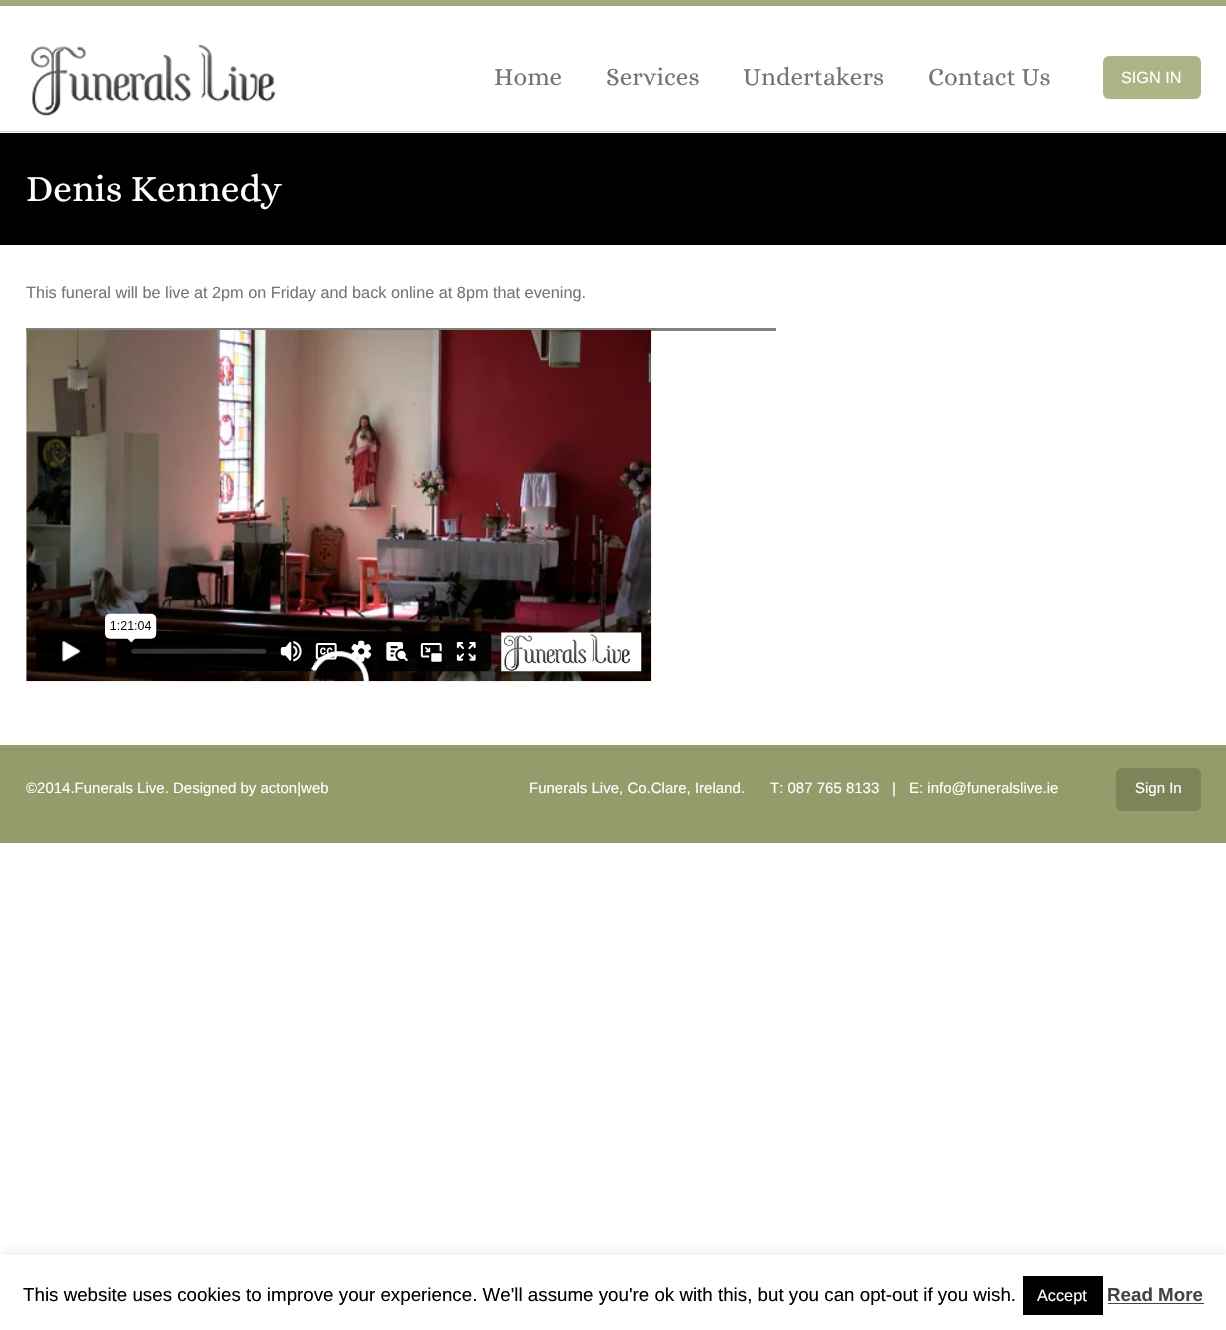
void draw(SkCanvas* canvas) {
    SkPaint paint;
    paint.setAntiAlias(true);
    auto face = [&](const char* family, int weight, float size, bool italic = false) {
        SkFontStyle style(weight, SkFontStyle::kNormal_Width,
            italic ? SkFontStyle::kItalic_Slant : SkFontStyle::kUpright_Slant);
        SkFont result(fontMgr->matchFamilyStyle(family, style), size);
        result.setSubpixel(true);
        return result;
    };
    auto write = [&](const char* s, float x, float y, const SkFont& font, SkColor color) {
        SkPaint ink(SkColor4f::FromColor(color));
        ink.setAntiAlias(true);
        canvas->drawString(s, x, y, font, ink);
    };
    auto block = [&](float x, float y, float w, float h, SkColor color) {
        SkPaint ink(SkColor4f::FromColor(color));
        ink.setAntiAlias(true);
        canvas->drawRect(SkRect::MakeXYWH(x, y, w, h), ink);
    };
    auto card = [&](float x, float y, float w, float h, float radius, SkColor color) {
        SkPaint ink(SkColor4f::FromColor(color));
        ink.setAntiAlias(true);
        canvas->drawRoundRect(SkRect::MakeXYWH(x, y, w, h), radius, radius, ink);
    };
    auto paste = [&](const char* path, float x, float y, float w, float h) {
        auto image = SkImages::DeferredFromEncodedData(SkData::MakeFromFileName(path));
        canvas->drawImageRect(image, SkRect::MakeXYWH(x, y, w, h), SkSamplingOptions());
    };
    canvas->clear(SK_ColorWHITE);
    block(0, 0, 1226, 6, SkColorSetRGB(164, 170, 119));
    block(0, 131, 1226, 1, SkColorSetRGB(213, 213, 213));
    paste("pic1.png", 30, 44, 246, 73);
    auto kFont1 = face("Alice", 400, 25);
    write("Home", 494, 85, kFont1, SkColorSetRGB(117, 117, 117));
    write("Services", 606, 85, kFont1, SkColorSetRGB(117, 117, 117));
    write("Undertakers", 743, 85, kFont1, SkColorSetRGB(117, 117, 117));
    write("Contact Us", 928, 85, kFont1, SkColorSetRGB(117, 117, 117));
    card(1103, 56, 98, 43, 6, SkColorSetRGB(174, 180, 134));
    auto kFont2 = face("Liberation Sans", 400, 16.25f);
    write("SIGN IN", 1121, 83, kFont2, SK_ColorWHITE);
    block(0, 133, 1226, 112, SK_ColorBLACK);
    auto kFont3 = face("Alice", 400, 37.5f);
    write("Denis Kennedy", 26, 201, kFont3, SK_ColorWHITE);
    write("This funeral will be live at 2pm on Friday and back online at 8pm that evening.", 26, 298, kFont2, SkColorSetRGB(117, 117, 117));
    block(26, 328, 750, 3, SkColorSetRGB(128, 128, 128));
    paste("pic2.png", 26, 330, 626, 352);
    block(0, 745, 1226, 98, SkColorSetRGB(149, 155, 106));
    block(0, 749, 1226, 1, SkColorSetRGB(134, 143, 101));
    auto kFont4 = face("Liberation Sans", 400, 15);
    write("©2014.Funerals Live. Designed by acton|web", 26, 793, kFont4, SK_ColorWHITE);
    write("Funerals Live, Co.Clare, Ireland.", 529, 793, kFont4, SK_ColorWHITE);
    write("T: 087 765 8133", 770, 793, kFont4, SK_ColorWHITE);
    write("|", 892, 793, kFont4, SK_ColorWHITE);
    write("E: info@funeralslive.ie", 909, 793, kFont4, SK_ColorWHITE);
    card(1116, 768, 85, 43, 6, SkColorSetRGB(126, 132, 89));
    write("Sign In", 1135, 793, kFont4, SK_ColorWHITE);
    canvas->save();
    canvas->clipRect(SkRect::MakeXYWH(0, 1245, 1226, 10));
    paint.setColor(SkColorSetARGB(77, 172, 171, 171));
    paint.setMaskFilter(SkMaskFilter::MakeBlur(kNormal_SkBlurStyle, 6));
    canvas->drawRect(SkRect::MakeXYWH(0, 1254, 1226, 75), paint);
    paint.setMaskFilter(nullptr);
    canvas->restore();
    auto kFont5 = face("Liberation Sans", 400, 18.75f);
    write("This website uses cookies to improve your experience. We'll assume you're ok with this, but you can opt-out if you wish.", 23, 1301, kFont5, SK_ColorBLACK);
    block(1023, 1276, 80, 39, SK_ColorBLACK);
    write("Accept", 1037, 1301, kFont2, SK_ColorWHITE);
    auto kFont6 = face("Liberation Sans", 700, 18.75f);
    write("Read More", 1107, 1301, kFont6, SkColorSetRGB(68, 68, 68));
    block(1108, 1303, 96, 1, SkColorSetRGB(68, 68, 68));
}
